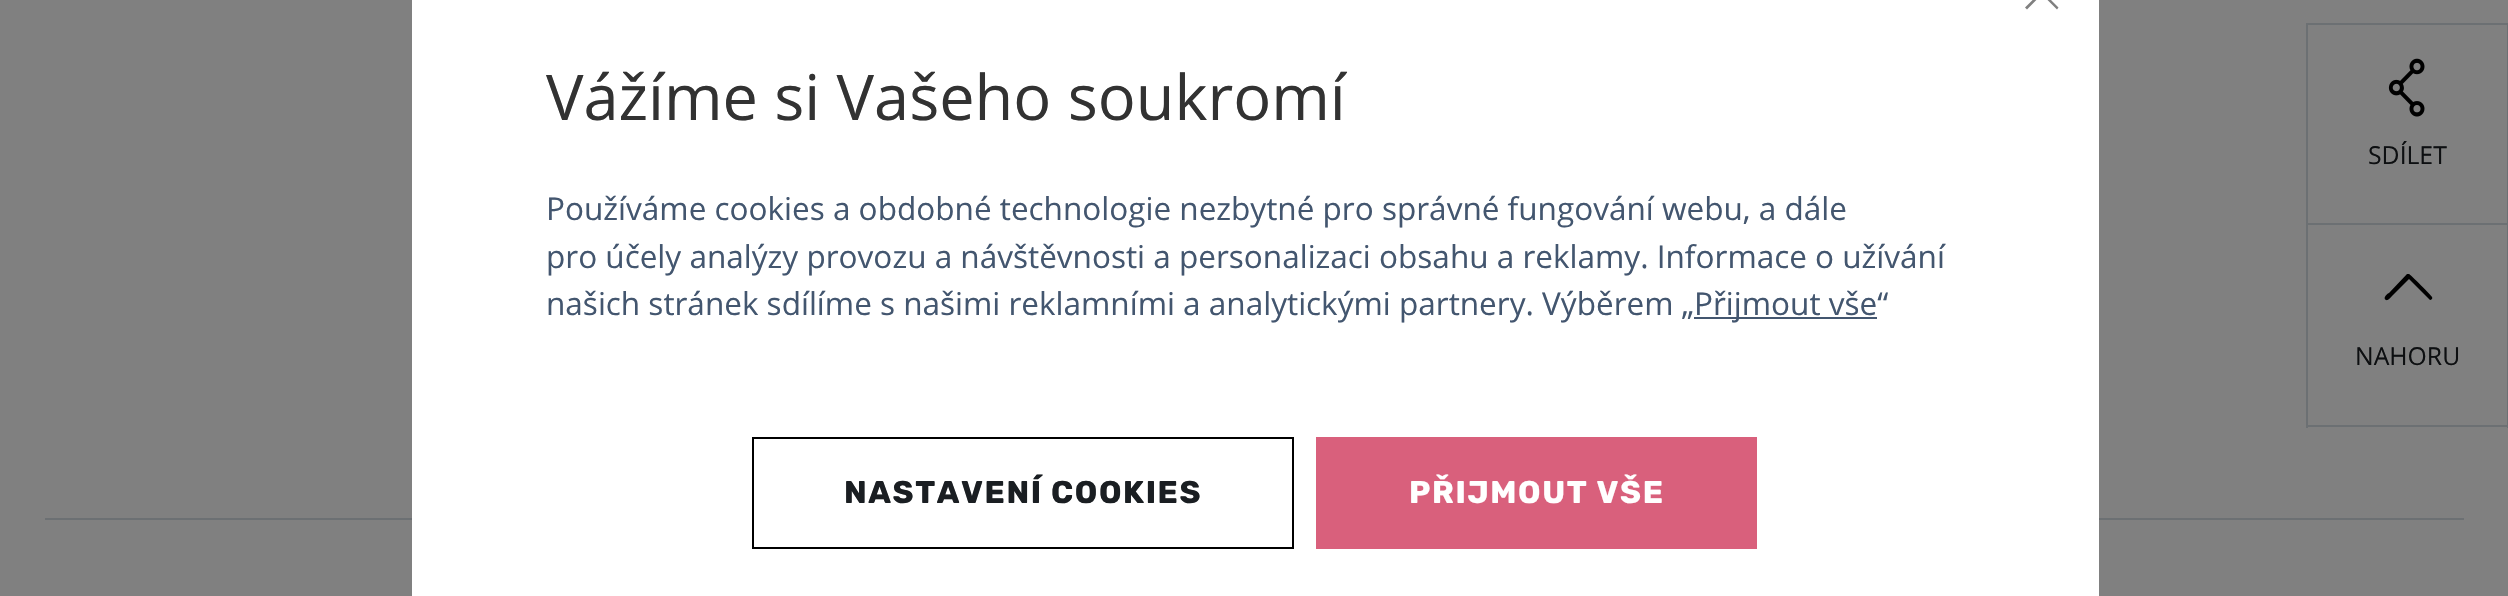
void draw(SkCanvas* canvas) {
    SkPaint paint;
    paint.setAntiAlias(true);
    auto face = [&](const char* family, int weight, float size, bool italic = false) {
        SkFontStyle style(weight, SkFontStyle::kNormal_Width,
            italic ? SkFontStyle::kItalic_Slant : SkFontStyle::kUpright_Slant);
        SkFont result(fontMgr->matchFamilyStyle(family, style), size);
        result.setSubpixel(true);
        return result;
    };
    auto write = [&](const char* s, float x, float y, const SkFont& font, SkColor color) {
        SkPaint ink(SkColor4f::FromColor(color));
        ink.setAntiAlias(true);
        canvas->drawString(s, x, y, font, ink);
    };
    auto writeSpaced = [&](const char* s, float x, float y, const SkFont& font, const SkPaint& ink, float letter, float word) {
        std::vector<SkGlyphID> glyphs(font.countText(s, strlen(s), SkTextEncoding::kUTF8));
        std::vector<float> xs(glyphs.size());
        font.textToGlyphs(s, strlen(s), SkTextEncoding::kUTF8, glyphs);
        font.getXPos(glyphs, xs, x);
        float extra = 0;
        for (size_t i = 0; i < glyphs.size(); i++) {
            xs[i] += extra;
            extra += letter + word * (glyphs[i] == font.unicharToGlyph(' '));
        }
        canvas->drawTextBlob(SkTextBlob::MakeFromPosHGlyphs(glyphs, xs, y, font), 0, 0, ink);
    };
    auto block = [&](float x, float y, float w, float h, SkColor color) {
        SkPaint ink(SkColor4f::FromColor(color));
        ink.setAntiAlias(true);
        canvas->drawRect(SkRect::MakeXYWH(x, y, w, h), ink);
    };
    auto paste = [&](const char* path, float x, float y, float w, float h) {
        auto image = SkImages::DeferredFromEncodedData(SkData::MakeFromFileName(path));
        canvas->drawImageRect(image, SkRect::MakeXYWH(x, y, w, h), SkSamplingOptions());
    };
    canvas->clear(SkColorSetRGB(128, 128, 128));
    block(45, 518, 2419, 2, SkColorSetRGB(108, 112, 115));
    block(412, 0, 1687, 596, SK_ColorWHITE);
    paint.setColor(SkColorSetRGB(128, 128, 128));
    canvas->drawPath(SkPathBuilder().moveTo(2027, -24).lineTo(2058.5f, 7.5f).lineTo(2057, 9.5f).lineTo(2025, -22.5f).close().moveTo(2025, 7.5f).lineTo(2057, -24).lineTo(2058.5f, -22.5f).lineTo(2027, 9.5f).close().detach(), paint);
    auto kFont1 = face("Open Sans", 400, 63);
    write("Vážíme si Vašeho soukromí", 546, 120, kFont1, SkColorSetRGB(50, 50, 50));
    auto kFont2 = face("Open Sans", 400, 31.5f);
    write("Používáme cookies a obdobné technologie nezbytné pro správné fungování webu, a dále", 546, 220, kFont2, SkColorSetRGB(67, 86, 111));
    write("pro účely analýzy provozu a návštěvnosti a personalizaci obsahu a reklamy. Informace o užívání", 546, 268, kFont2, SkColorSetRGB(67, 86, 111));
    write("našich stránek sdílíme s našimi reklamními a analytickými partnery. Výběrem „", 546, 315, kFont2, SkColorSetRGB(67, 86, 111));
    block(1694, 317, 183, 2, SkColorSetRGB(67, 86, 111));
    write("Přijmout vše“", 1694, 315, kFont2, SkColorSetRGB(67, 86, 111));
    paint.setStyle(SkPaint::kStroke_Style);
    paint.setStrokeWidth(2);
    paint.setColor(SK_ColorBLACK);
    canvas->drawRect(SkRect::MakeXYWH(753, 438, 540, 110), paint);
    auto kFont3 = face("Rubik", 700, 31.5f);
    paint.setStyle(SkPaint::kFill_Style);
    paint.setColor(SkColorSetRGB(26, 30, 34));
    writeSpaced("NASTAVENÍ COOKIES", 844, 503, kFont3, paint, 1.6f, 0);
    block(1316, 437, 441, 112, SkColorSetRGB(217, 96, 124));
    paint.setColor(SK_ColorWHITE);
    writeSpaced("PŘIJMOUT VŠE", 1409, 503, kFont3, paint, 1.6f, 0);
    paint.setStyle(SkPaint::kStroke_Style);
    paint.setColor(SkColorSetRGB(108, 112, 115));
    canvas->drawRect(SkRect::MakeXYWH(2307, 24, 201, 200), paint);
    paste("pic1.png", 2388, 58, 37, 59);
    auto kFont4 = face("Open Sans", 400, 24.75f);
    write("SDÍLET", 2368, 164, kFont4, SkColorSetRGB(13, 15, 17));
    block(2507, 225, 1, 203, SkColorSetRGB(108, 112, 115));
    block(2306, 425, 202, 2, SkColorSetRGB(108, 112, 115));
    block(2306, 225, 2, 203, SkColorSetRGB(108, 112, 115));
    paint.setStyle(SkPaint::kFill_Style);
    paint.setColor(SK_ColorBLACK);
    canvas->drawPath(SkPathBuilder().moveTo(2409, 279).lineTo(2430, 300).cubicTo(2431, 300, 2433, 299, 2432, 297).cubicTo(2432, 296, 2410, 274, 2409, 274).lineTo(2407, 274).lineTo(2389, 293).cubicTo(2388, 293, 2382, 298, 2386, 300).cubicTo(2388, 301, 2391, 297, 2392, 296).close().detach(), paint);
    write("NAHORU", 2355, 365, kFont4, SkColorSetRGB(13, 15, 17));
}
